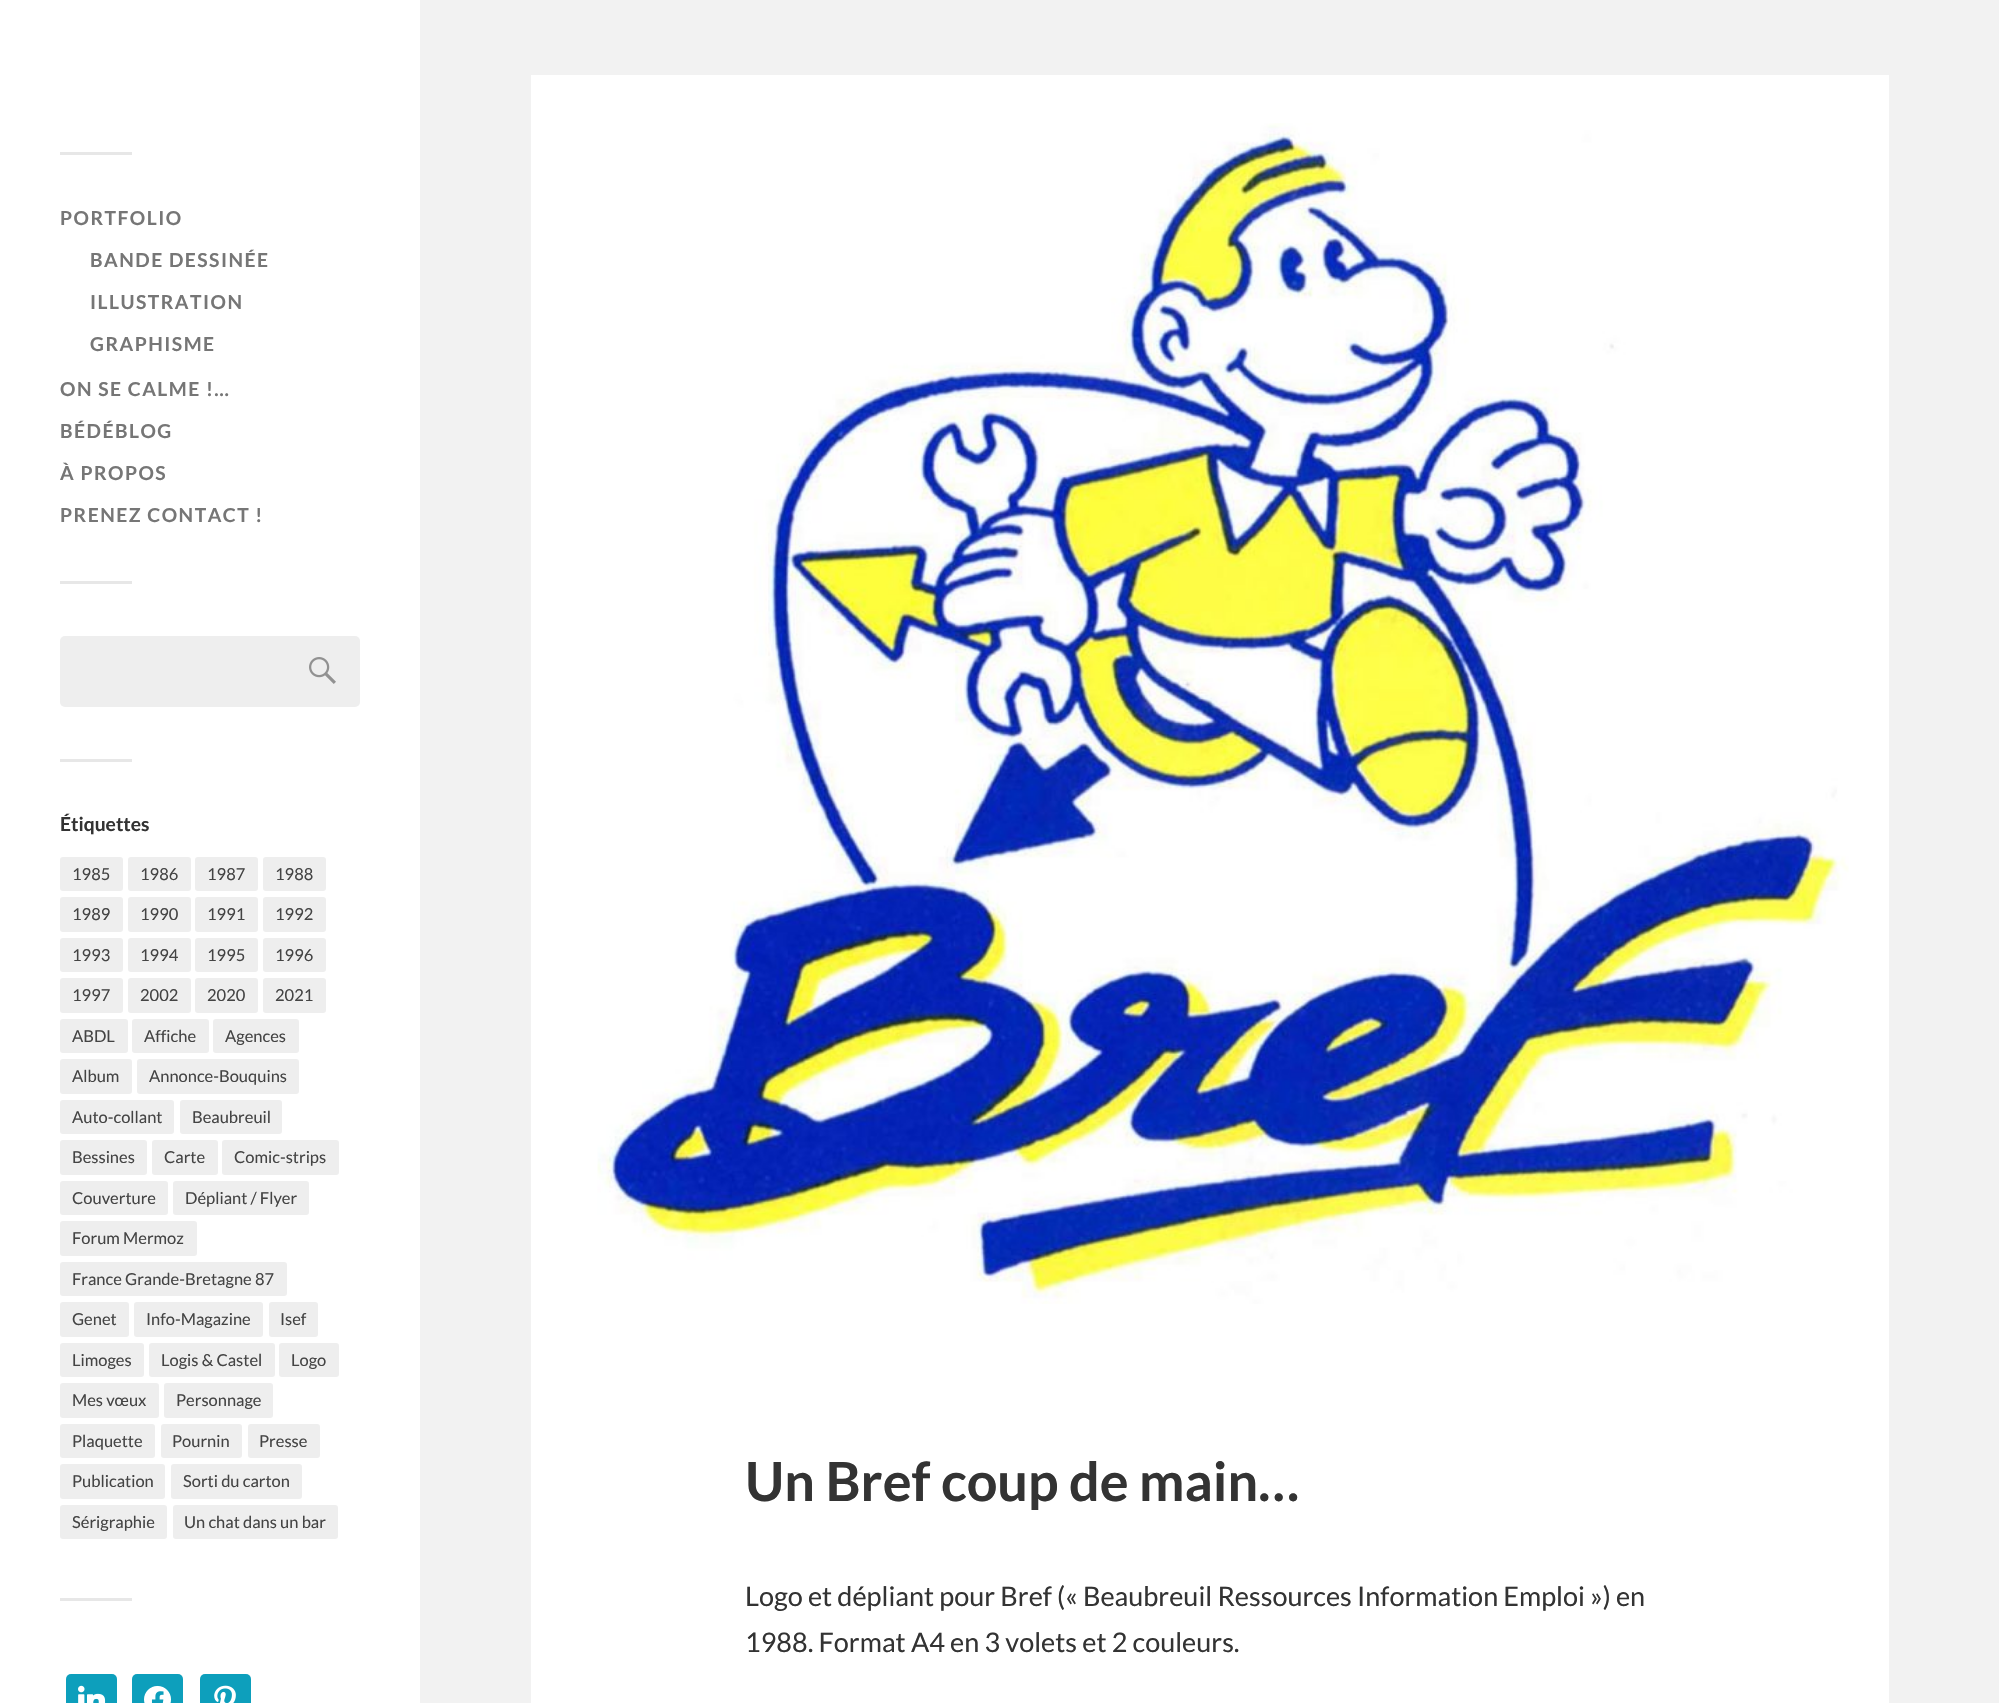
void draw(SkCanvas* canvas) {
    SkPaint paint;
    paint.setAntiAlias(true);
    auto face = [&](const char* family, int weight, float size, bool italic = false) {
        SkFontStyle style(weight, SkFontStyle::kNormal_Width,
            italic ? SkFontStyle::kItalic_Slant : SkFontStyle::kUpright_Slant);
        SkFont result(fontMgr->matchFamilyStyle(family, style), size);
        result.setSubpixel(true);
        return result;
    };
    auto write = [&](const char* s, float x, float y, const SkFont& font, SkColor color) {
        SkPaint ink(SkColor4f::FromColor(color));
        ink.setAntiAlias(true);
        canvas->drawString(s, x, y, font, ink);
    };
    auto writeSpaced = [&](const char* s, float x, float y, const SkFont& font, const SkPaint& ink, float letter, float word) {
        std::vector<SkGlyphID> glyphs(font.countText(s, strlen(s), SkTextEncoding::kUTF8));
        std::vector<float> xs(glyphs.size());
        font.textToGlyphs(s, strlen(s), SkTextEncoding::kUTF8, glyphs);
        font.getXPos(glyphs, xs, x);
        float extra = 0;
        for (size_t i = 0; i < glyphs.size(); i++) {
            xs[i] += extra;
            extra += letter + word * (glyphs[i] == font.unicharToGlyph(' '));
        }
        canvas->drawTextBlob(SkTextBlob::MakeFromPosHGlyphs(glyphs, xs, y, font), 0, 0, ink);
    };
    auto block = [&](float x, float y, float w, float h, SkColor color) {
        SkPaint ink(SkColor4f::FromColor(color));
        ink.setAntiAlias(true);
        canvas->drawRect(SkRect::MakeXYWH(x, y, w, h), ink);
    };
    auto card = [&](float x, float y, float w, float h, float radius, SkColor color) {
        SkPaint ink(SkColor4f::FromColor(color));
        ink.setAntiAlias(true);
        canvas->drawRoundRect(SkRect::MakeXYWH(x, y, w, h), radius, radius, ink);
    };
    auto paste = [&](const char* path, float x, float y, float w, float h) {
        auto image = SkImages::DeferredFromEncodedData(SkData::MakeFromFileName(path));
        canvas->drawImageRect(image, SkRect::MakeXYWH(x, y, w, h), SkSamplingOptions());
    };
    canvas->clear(SkColorSetRGB(242, 242, 242));
    block(0, 0, 420, 1703, SK_ColorWHITE);
    block(60, 152, 72, 3, SkColorSetRGB(231, 231, 231));
    auto kFont1 = face("Lato", 700, 19.25f);
    paint.setColor(SkColorSetRGB(118, 118, 118));
    writeSpaced("PORTFOLIO", 60, 225, kFont1, paint, 1.5f, 0);
    writeSpaced("BANDE DESSINÉE", 90, 267, kFont1, paint, 1.5f, 0);
    writeSpaced("ILLUSTRATION", 90, 309, kFont1, paint, 1.5f, 0);
    writeSpaced("GRAPHISME", 90, 351, kFont1, paint, 1.5f, 0);
    writeSpaced("ON SE CALME !…", 60, 396, kFont1, paint, 1.5f, 0);
    writeSpaced("BÉDÉBLOG", 60, 438, kFont1, paint, 1.5f, 0);
    writeSpaced("À PROPOS", 60, 480, kFont1, paint, 1.5f, 0);
    writeSpaced("PRENEZ CONTACT !", 60, 522, kFont1, paint, 1.5f, 0);
    block(60, 581, 72, 3, SkColorSetRGB(231, 231, 231));
    card(60, 636, 300, 71, 5, SkColorSetRGB(238, 238, 238));
    paste("pic1.png", 309, 657, 27, 27);
    block(60, 759, 72, 3, SkColorSetRGB(231, 231, 231));
    write("Étiquettes", 60, 831, kFont1, SkColorSetRGB(51, 51, 51));
    card(60, 857, 63, 34, 3, SkColorSetRGB(238, 238, 238));
    auto kFont2 = face("Lato", 400, 16.5f);
    write("1985", 72, 880, kFont2, SkColorSetRGB(68, 68, 68));
    card(128, 857, 63, 34, 3, SkColorSetRGB(238, 238, 238));
    write("1986", 140, 880, kFont2, SkColorSetRGB(68, 68, 68));
    card(195, 857, 63, 34, 3, SkColorSetRGB(238, 238, 238));
    write("1987", 207, 880, kFont2, SkColorSetRGB(68, 68, 68));
    card(263, 857, 63, 34, 3, SkColorSetRGB(238, 238, 238));
    write("1988", 275, 880, kFont2, SkColorSetRGB(68, 68, 68));
    card(60, 897, 63, 35, 3, SkColorSetRGB(238, 238, 238));
    write("1989", 72, 920, kFont2, SkColorSetRGB(68, 68, 68));
    card(128, 897, 63, 35, 3, SkColorSetRGB(238, 238, 238));
    write("1990", 140, 920, kFont2, SkColorSetRGB(68, 68, 68));
    card(195, 897, 63, 35, 3, SkColorSetRGB(238, 238, 238));
    write("1991", 207, 920, kFont2, SkColorSetRGB(68, 68, 68));
    card(263, 897, 63, 35, 3, SkColorSetRGB(238, 238, 238));
    write("1992", 275, 920, kFont2, SkColorSetRGB(68, 68, 68));
    card(60, 938, 63, 34, 3, SkColorSetRGB(238, 238, 238));
    write("1993", 72, 961, kFont2, SkColorSetRGB(68, 68, 68));
    card(128, 938, 63, 34, 3, SkColorSetRGB(238, 238, 238));
    write("1994", 140, 961, kFont2, SkColorSetRGB(68, 68, 68));
    card(195, 938, 63, 34, 3, SkColorSetRGB(238, 238, 238));
    write("1995", 207, 961, kFont2, SkColorSetRGB(68, 68, 68));
    card(263, 938, 63, 34, 3, SkColorSetRGB(238, 238, 238));
    write("1996", 275, 961, kFont2, SkColorSetRGB(68, 68, 68));
    card(60, 978, 63, 35, 3, SkColorSetRGB(238, 238, 238));
    write("1997", 72, 1001, kFont2, SkColorSetRGB(68, 68, 68));
    card(128, 978, 63, 35, 3, SkColorSetRGB(238, 238, 238));
    write("2002", 140, 1001, kFont2, SkColorSetRGB(68, 68, 68));
    card(195, 978, 63, 35, 3, SkColorSetRGB(238, 238, 238));
    write("2020", 207, 1001, kFont2, SkColorSetRGB(68, 68, 68));
    card(263, 978, 63, 35, 3, SkColorSetRGB(238, 238, 238));
    write("2021", 275, 1001, kFont2, SkColorSetRGB(68, 68, 68));
    card(60, 1019, 68, 34, 3, SkColorSetRGB(238, 238, 238));
    write("ABDL", 72, 1042, kFont2, SkColorSetRGB(68, 68, 68));
    card(132, 1019, 77, 34, 3, SkColorSetRGB(238, 238, 238));
    write("Affiche", 144, 1042, kFont2, SkColorSetRGB(68, 68, 68));
    card(213, 1019, 86, 34, 3, SkColorSetRGB(238, 238, 238));
    write("Agences", 225, 1042, kFont2, SkColorSetRGB(68, 68, 68));
    card(60, 1059, 72, 35, 3, SkColorSetRGB(238, 238, 238));
    write("Album", 72, 1082, kFont2, SkColorSetRGB(68, 68, 68));
    card(137, 1059, 162, 35, 3, SkColorSetRGB(238, 238, 238));
    write("Annonce-Bouquins", 149, 1082, kFont2, SkColorSetRGB(68, 68, 68));
    card(60, 1100, 114, 34, 3, SkColorSetRGB(238, 238, 238));
    write("Auto-collant", 72, 1123, kFont2, SkColorSetRGB(68, 68, 68));
    card(180, 1100, 102, 34, 3, SkColorSetRGB(238, 238, 238));
    write("Beaubreuil", 192, 1123, kFont2, SkColorSetRGB(68, 68, 68));
    card(60, 1140, 87, 35, 3, SkColorSetRGB(238, 238, 238));
    write("Bessines", 72, 1163, kFont2, SkColorSetRGB(68, 68, 68));
    card(152, 1140, 66, 35, 3, SkColorSetRGB(238, 238, 238));
    write("Carte", 164, 1163, kFont2, SkColorSetRGB(68, 68, 68));
    card(222, 1140, 117, 35, 3, SkColorSetRGB(238, 238, 238));
    write("Comic-strips", 234, 1163, kFont2, SkColorSetRGB(68, 68, 68));
    card(60, 1181, 108, 34, 3, SkColorSetRGB(238, 238, 238));
    write("Couverture", 72, 1204, kFont2, SkColorSetRGB(68, 68, 68));
    card(173, 1181, 136, 34, 3, SkColorSetRGB(238, 238, 238));
    write("Dépliant / Flyer", 185, 1204, kFont2, SkColorSetRGB(68, 68, 68));
    card(60, 1221, 137, 35, 3, SkColorSetRGB(238, 238, 238));
    write("Forum Mermoz", 72, 1244, kFont2, SkColorSetRGB(68, 68, 68));
    card(60, 1262, 227, 34, 3, SkColorSetRGB(238, 238, 238));
    write("France Grande-Bretagne 87", 72, 1285, kFont2, SkColorSetRGB(68, 68, 68));
    card(60, 1302, 69, 35, 3, SkColorSetRGB(238, 238, 238));
    write("Genet", 72, 1325, kFont2, SkColorSetRGB(68, 68, 68));
    card(134, 1302, 129, 35, 3, SkColorSetRGB(238, 238, 238));
    write("Info-Magazine", 146, 1325, kFont2, SkColorSetRGB(68, 68, 68));
    card(269, 1302, 49, 35, 3, SkColorSetRGB(238, 238, 238));
    write("Isef", 280, 1325, kFont2, SkColorSetRGB(68, 68, 68));
    card(60, 1343, 84, 34, 3, SkColorSetRGB(238, 238, 238));
    write("Limoges", 72, 1366, kFont2, SkColorSetRGB(68, 68, 68));
    card(149, 1343, 126, 34, 3, SkColorSetRGB(238, 238, 238));
    write("Logis & Castel", 161, 1366, kFont2, SkColorSetRGB(68, 68, 68));
    card(279, 1343, 60, 34, 3, SkColorSetRGB(238, 238, 238));
    write("Logo", 291, 1366, kFont2, SkColorSetRGB(68, 68, 68));
    card(60, 1383, 99, 35, 3, SkColorSetRGB(238, 238, 238));
    write("Mes vœux", 72, 1406, kFont2, SkColorSetRGB(68, 68, 68));
    card(164, 1383, 109, 35, 3, SkColorSetRGB(238, 238, 238));
    write("Personnage", 176, 1406, kFont2, SkColorSetRGB(68, 68, 68));
    card(60, 1424, 95, 34, 3, SkColorSetRGB(238, 238, 238));
    write("Plaquette", 72, 1447, kFont2, SkColorSetRGB(68, 68, 68));
    card(161, 1424, 81, 34, 3, SkColorSetRGB(238, 238, 238));
    write("Pournin", 172, 1447, kFont2, SkColorSetRGB(68, 68, 68));
    card(248, 1424, 72, 34, 3, SkColorSetRGB(238, 238, 238));
    write("Presse", 259, 1447, kFont2, SkColorSetRGB(68, 68, 68));
    card(60, 1464, 105, 35, 3, SkColorSetRGB(238, 238, 238));
    write("Publication", 72, 1487, kFont2, SkColorSetRGB(68, 68, 68));
    card(171, 1464, 131, 35, 3, SkColorSetRGB(238, 238, 238));
    write("Sorti du carton", 183, 1487, kFont2, SkColorSetRGB(68, 68, 68));
    card(60, 1505, 107, 34, 3, SkColorSetRGB(238, 238, 238));
    write("Sérigraphie", 72, 1528, kFont2, SkColorSetRGB(68, 68, 68));
    card(173, 1505, 165, 34, 3, SkColorSetRGB(238, 238, 238));
    write("Un chat dans un bar", 184, 1528, kFont2, SkColorSetRGB(68, 68, 68));
    block(60, 1598, 72, 3, SkColorSetRGB(231, 231, 231));
    card(66, 1674, 51, 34, 5, SkColorSetRGB(13, 159, 188));
    paste("pic2.png", 78, 1685, 28, 18);
    card(132, 1674, 51, 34, 5, SkColorSetRGB(13, 159, 188));
    paste("pic3.png", 144, 1685, 27, 18);
    card(200, 1674, 51, 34, 5, SkColorSetRGB(13, 159, 188));
    paste("pic4.png", 214, 1685, 22, 18);
    block(531, 75, 1358, 1628, SK_ColorWHITE);
    paste("pic5.png", 597, 123, 1252, 1181);
    auto kFont3 = face("Lato", 700, 54);
    write("Un Bref coup de main…", 745, 1501, kFont3, SkColorSetRGB(51, 51, 51));
    auto kFont4 = face("Lato", 400, 27);
    write("Logo et dépliant pour Bref (« Beaubreuil Ressources Information Emploi ») en", 745, 1606, kFont4, SkColorSetRGB(51, 51, 51));
    write("1988. Format A4 en 3 volets et 2 couleurs.", 745, 1652, kFont4, SkColorSetRGB(51, 51, 51));
}
